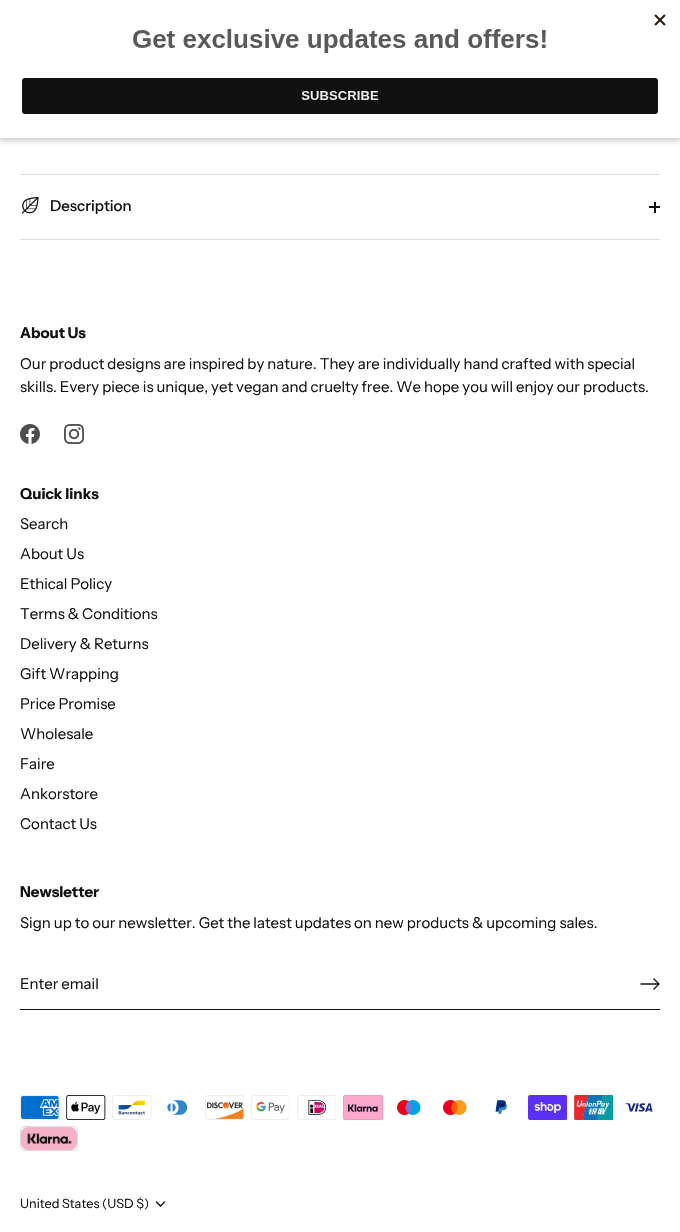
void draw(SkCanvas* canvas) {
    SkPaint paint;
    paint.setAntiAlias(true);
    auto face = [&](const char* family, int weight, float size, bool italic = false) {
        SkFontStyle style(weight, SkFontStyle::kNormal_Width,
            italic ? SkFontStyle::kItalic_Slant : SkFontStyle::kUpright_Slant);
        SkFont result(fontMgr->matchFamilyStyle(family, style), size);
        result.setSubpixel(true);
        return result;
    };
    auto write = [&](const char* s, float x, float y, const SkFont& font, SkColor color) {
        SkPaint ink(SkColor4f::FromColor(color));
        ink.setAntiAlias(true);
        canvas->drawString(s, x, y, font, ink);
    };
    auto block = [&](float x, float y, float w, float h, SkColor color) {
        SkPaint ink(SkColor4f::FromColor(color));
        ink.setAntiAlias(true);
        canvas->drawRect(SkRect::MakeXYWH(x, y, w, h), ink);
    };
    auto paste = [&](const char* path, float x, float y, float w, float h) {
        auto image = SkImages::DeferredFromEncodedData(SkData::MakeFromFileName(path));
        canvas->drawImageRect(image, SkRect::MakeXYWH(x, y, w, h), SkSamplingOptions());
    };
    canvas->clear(SK_ColorWHITE);
    paint.setColor(SkColorSetARGB(51, 0, 0, 0));
    paint.setMaskFilter(SkMaskFilter::MakeBlur(kNormal_SkBlurStyle, 3));
    canvas->drawRect(SkRect::MakeXYWH(0, 3, 680, 138), paint);
    paint.setMaskFilter(nullptr);
    block(0, 0, 680, 138, SK_ColorWHITE);
    paste("pic1.png", 22, 14, 644, 100);
    block(20, 174, 640, 1, SkColorSetRGB(221, 221, 221));
    block(20, 239, 640, 1, SkColorSetRGB(221, 221, 221));
    paste("pic2.png", 21, 196, 18, 18);
    auto kFont1 = face("Instrument Sans", 500, 15);
    write("Description", 50, 211, kFont1, SkColorSetRGB(17, 17, 17));
    block(654, 202, 2, 11, SkColorSetRGB(17, 17, 17));
    block(649, 206, 11, 2, SkColorSetRGB(17, 17, 17));
    auto kFont2 = face("Instrument Sans", 700, 15);
    write("About Us", 20, 338, kFont2, SkColorSetRGB(17, 17, 17));
    auto kFont3 = face("Instrument Sans", 400, 15);
    write("Our product designs are inspired by nature. They are individually hand crafted with special", 20, 369, kFont3, SkColorSetRGB(17, 17, 17));
    write("skills. Every piece is unique, yet vegan and cruelty free. We hope you will enjoy our products.", 20, 392, kFont3, SkColorSetRGB(17, 17, 17));
    paste("pic3.png", 20, 424, 20, 20);
    paste("pic4.png", 64, 424, 20, 20);
    write("Quick links", 20, 499, kFont2, SkColorSetRGB(17, 17, 17));
    write("Search", 20, 529, kFont3, SkColorSetRGB(17, 17, 17));
    write("About Us", 20, 559, kFont3, SkColorSetRGB(17, 17, 17));
    write("Ethical Policy", 20, 589, kFont3, SkColorSetRGB(17, 17, 17));
    write("Terms & Conditions", 20, 619, kFont3, SkColorSetRGB(17, 17, 17));
    write("Delivery & Returns", 20, 649, kFont3, SkColorSetRGB(17, 17, 17));
    write("Gift Wrapping", 20, 679, kFont3, SkColorSetRGB(17, 17, 17));
    write("Price Promise", 20, 709, kFont3, SkColorSetRGB(17, 17, 17));
    write("Wholesale", 20, 739, kFont3, SkColorSetRGB(17, 17, 17));
    write("Faire", 20, 769, kFont3, SkColorSetRGB(17, 17, 17));
    write("Ankorstore", 20, 799, kFont3, SkColorSetRGB(17, 17, 17));
    write("Contact Us", 20, 829, kFont3, SkColorSetRGB(17, 17, 17));
    write("Newsletter", 20, 897, kFont2, SkColorSetRGB(17, 17, 17));
    write("Sign up to our newsletter. Get the latest updates on new products & upcoming sales.", 20, 928, kFont3, SkColorSetRGB(17, 17, 17));
    block(20, 1009, 640, 1, SkColorSetRGB(17, 17, 17));
    write("Enter email", 20, 989, kFont3, SkColorSetRGB(17, 17, 17));
    paint.setStyle(SkPaint::kStroke_Style);
    paint.setStrokeWidth(1.3f);
    paint.setStrokeCap(SkPaint::kRound_Cap);
    paint.setColor(SkColorSetRGB(17, 17, 17));
    canvas->drawPath(SkPathBuilder().moveTo(654, 989).lineTo(659, 984).lineTo(654, 979).detach(), paint);
    paint.setStrokeJoin(SkPaint::kRound_Join);
    canvas->drawPath(SkPathBuilder().moveTo(658, 984).lineTo(641, 984).detach(), paint);
    paste("pic5.png", 20, 1095, 40, 25);
    paste("pic6.png", 66, 1095, 40, 25);
    paste("pic7.png", 112, 1095, 40, 25);
    paste("pic8.png", 167, 1100, 21, 15);
    paste("pic9.png", 205, 1095, 39, 25);
    paste("pic10.png", 251, 1095, 39, 25);
    paste("pic11.png", 297, 1095, 39, 25);
    paste("pic12.png", 343, 1095, 40, 25);
    paste("pic13.png", 397, 1100, 24, 15);
    paste("pic14.png", 443, 1100, 24, 15);
    paste("pic15.png", 495, 1100, 12, 14);
    paste("pic16.png", 528, 1095, 39, 25);
    paste("pic17.png", 574, 1095, 39, 25);
    paste("pic18.png", 625, 1103, 28, 9);
    paint.setStrokeWidth(1);
    paint.setStrokeCap(SkPaint::kButt_Cap);
    paint.setStrokeJoin(SkPaint::kMiter_Join);
    paint.setColor(SkColorSetRGB(221, 221, 221));
    canvas->drawRoundRect(SkRect::MakeXYWH(20.5f, 1126.5f, 57, 24), 3.5f, 3.5f, paint);
    paste("pic19.png", 21, 1127, 56, 23);
    auto kFont4 = face("Instrument Sans", 400, 12.75f);
    write("United States (USD $)", 20, 1208, kFont4, SkColorSetRGB(17, 17, 17));
    paint.setStrokeWidth(1.4f);
    paint.setStrokeCap(SkPaint::kRound_Cap);
    paint.setColor(SkColorSetRGB(17, 17, 17));
    canvas->drawPath(SkPathBuilder().moveTo(156.5f, 1202).lineTo(160.5f, 1206).lineTo(164.5f, 1202).detach(), paint);
}
